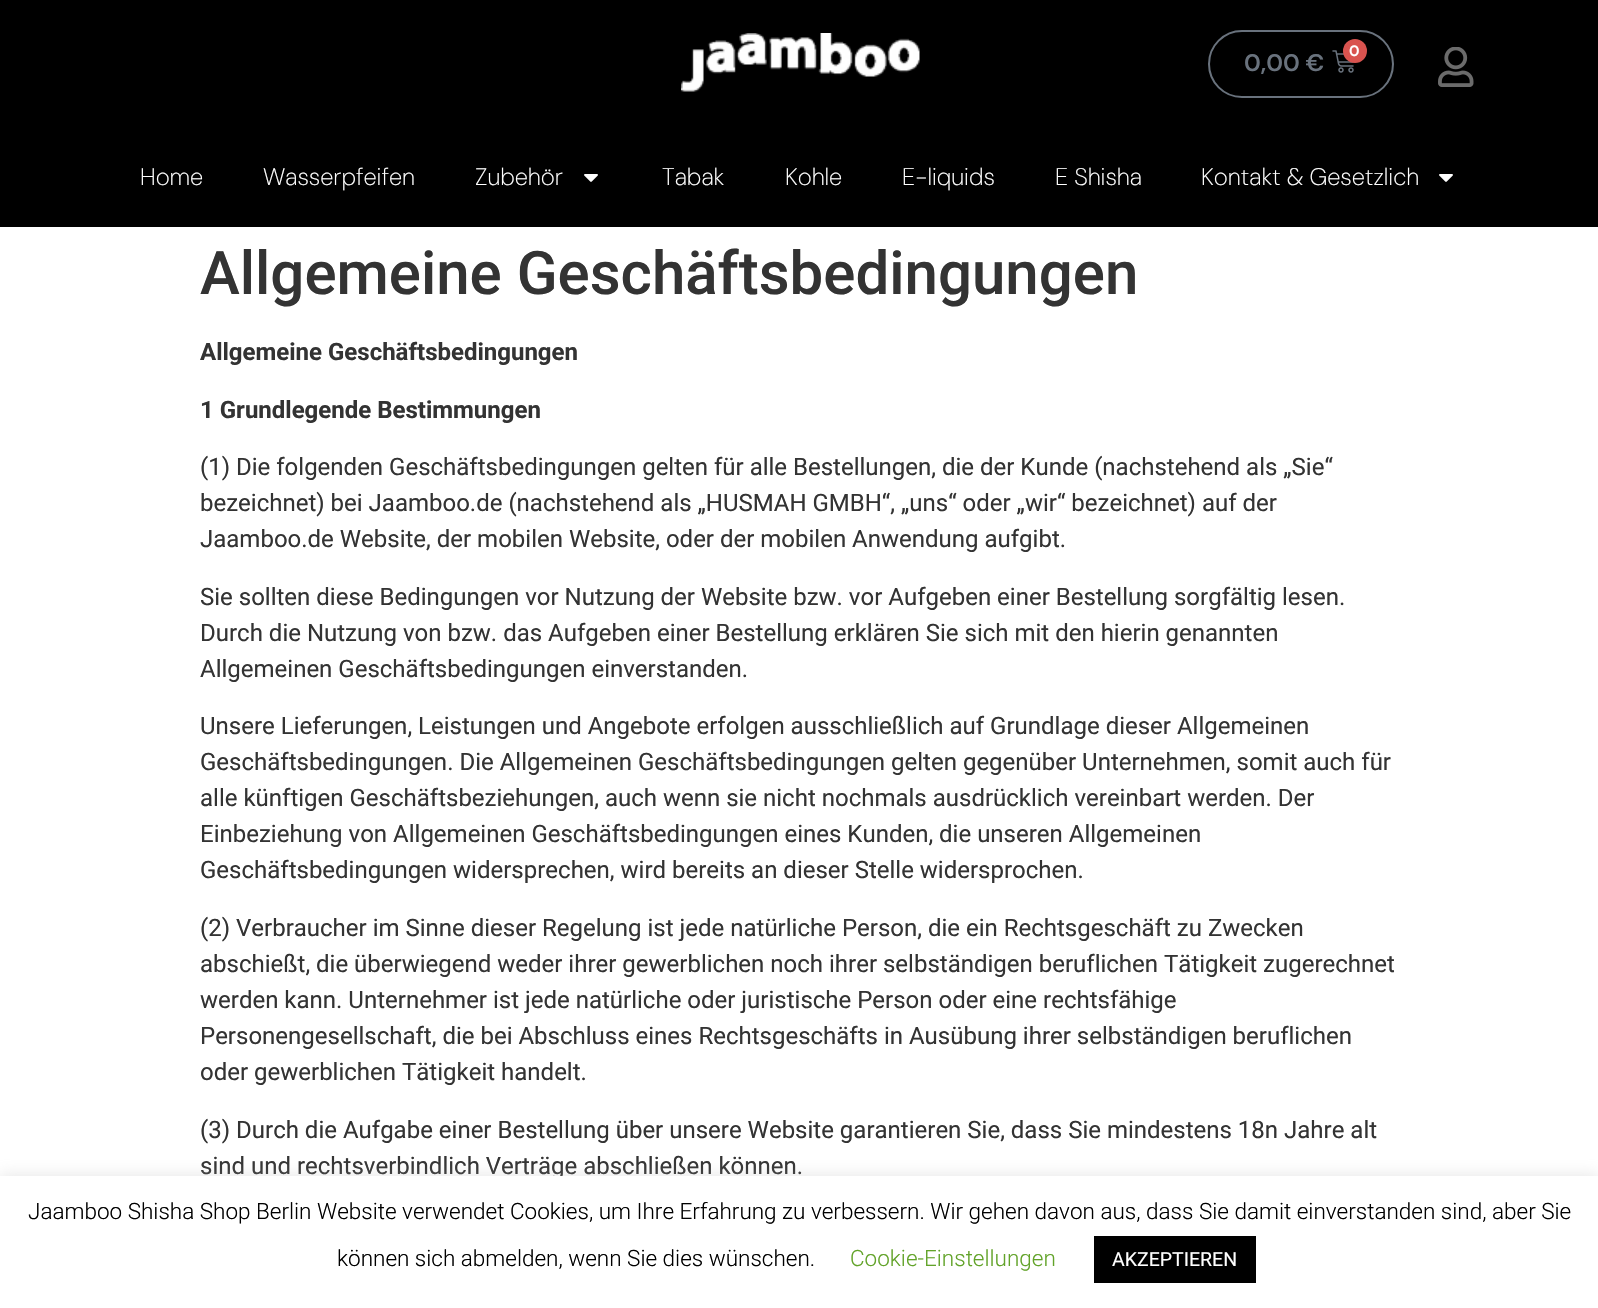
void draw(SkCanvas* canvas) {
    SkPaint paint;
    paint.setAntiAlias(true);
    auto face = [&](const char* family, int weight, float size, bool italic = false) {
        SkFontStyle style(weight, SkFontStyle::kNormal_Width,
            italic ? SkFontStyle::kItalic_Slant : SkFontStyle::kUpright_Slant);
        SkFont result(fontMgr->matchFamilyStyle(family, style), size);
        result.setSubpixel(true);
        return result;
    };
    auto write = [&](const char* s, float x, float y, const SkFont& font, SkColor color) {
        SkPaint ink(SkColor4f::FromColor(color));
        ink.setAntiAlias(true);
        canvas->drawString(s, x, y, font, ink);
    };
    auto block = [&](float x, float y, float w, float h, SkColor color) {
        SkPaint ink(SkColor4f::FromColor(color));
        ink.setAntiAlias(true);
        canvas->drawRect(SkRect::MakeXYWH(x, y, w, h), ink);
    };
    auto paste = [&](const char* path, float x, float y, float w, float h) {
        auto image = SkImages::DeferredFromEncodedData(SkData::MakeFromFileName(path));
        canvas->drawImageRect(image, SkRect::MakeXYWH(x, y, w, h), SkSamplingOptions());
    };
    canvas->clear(SK_ColorWHITE);
    block(0, 0, 1598, 227, SK_ColorBLACK);
    paste("pic1.png", 681, 33, 239, 59);
    paint.setStyle(SkPaint::kStroke_Style);
    paint.setStrokeWidth(2);
    paint.setColor(SkColorSetRGB(105, 114, 125));
    canvas->drawRoundRect(SkRect::MakeXYWH(1209, 31, 184, 66), 33, 33, paint);
    paste("pic2.png", 1332, 50, 22, 23);
    paint.setStyle(SkPaint::kFill_Style);
    paint.setColor(SkColorSetRGB(217, 83, 79));
    canvas->drawCircle(1355, 51, 12, paint);
    auto kFont1 = face("DM Sans", 600, 15);
    write("0", 1349, 56, kFont1, SK_ColorWHITE);
    auto kFont2 = face("DM Sans", 600, 24);
    write("0,00 €", 1244, 71, kFont2, SkColorSetRGB(105, 114, 125));
    paste("pic3.png", 1438, 47, 36, 40);
    auto kFont3 = face("DM Sans", 200, 24);
    write("Home", 140, 185, kFont3, SK_ColorWHITE);
    write("Wasserpfeifen", 263, 185, kFont3, SK_ColorWHITE);
    write("Zubehör", 475, 185, kFont3, SK_ColorWHITE);
    paste("pic4.png", 584, 174, 14, 8);
    write("Tabak", 662, 185, kFont3, SK_ColorWHITE);
    write("Kohle", 785, 185, kFont3, SK_ColorWHITE);
    write("E-liquids", 902, 185, kFont3, SK_ColorWHITE);
    write("E Shisha", 1055, 185, kFont3, SK_ColorWHITE);
    write("Kontakt & Gesetzlich", 1201, 185, kFont3, SK_ColorWHITE);
    paste("pic4.png", 1439, 174, 14, 8);
    auto kFont4 = face("Roboto", 500, 60);
    write("Allgemeine Geschäftsbedingungen", 200, 294, kFont4, SkColorSetRGB(51, 51, 51));
    auto kFont5 = face("Roboto", 700, 24);
    write("Allgemeine Geschäftsbedingungen", 200, 360, kFont5, SkColorSetRGB(51, 51, 51));
    write("1 Grundlegende Bestimmungen", 200, 418, kFont5, SkColorSetRGB(51, 51, 51));
    auto kFont6 = face("Roboto", 400, 24);
    write("(1) Die folgenden Geschäftsbedingungen gelten für alle Bestellungen, die der Kunde (nachstehend als „Sie“", 200, 475, kFont6, SkColorSetRGB(51, 51, 51));
    write("bezeichnet) bei Jaamboo.de (nachstehend als „HUSMAH GMBH“, „uns“ oder „wir“ bezeichnet) auf der", 200, 511, kFont6, SkColorSetRGB(51, 51, 51));
    write("Jaamboo.de Website, der mobilen Website, oder der mobilen Anwendung aufgibt.", 200, 547, kFont6, SkColorSetRGB(51, 51, 51));
    write("Sie sollten diese Bedingungen vor Nutzung der Website bzw. vor Aufgeben einer Bestellung sorgfältig lesen.", 200, 605, kFont6, SkColorSetRGB(51, 51, 51));
    write("Durch die Nutzung von bzw. das Aufgeben einer Bestellung erklären Sie sich mit den hierin genannten", 200, 641, kFont6, SkColorSetRGB(51, 51, 51));
    write("Allgemeinen Geschäftsbedingungen einverstanden.", 200, 677, kFont6, SkColorSetRGB(51, 51, 51));
    write("Unsere Lieferungen, Leistungen und Angebote erfolgen ausschließlich auf Grundlage dieser Allgemeinen", 200, 734, kFont6, SkColorSetRGB(51, 51, 51));
    write("Geschäftsbedingungen. Die Allgemeinen Geschäftsbedingungen gelten gegenüber Unternehmen, somit auch für", 200, 770, kFont6, SkColorSetRGB(51, 51, 51));
    write("alle künftigen Geschäftsbeziehungen, auch wenn sie nicht nochmals ausdrücklich vereinbart werden. Der", 200, 806, kFont6, SkColorSetRGB(51, 51, 51));
    write("Einbeziehung von Allgemeinen Geschäftsbedingungen eines Kunden, die unseren Allgemeinen", 200, 842, kFont6, SkColorSetRGB(51, 51, 51));
    write("Geschäftsbedingungen widersprechen, wird bereits an dieser Stelle widersprochen.", 200, 878, kFont6, SkColorSetRGB(51, 51, 51));
    write("(2) Verbraucher im Sinne dieser Regelung ist jede natürliche Person, die ein Rechtsgeschäft zu Zwecken", 200, 936, kFont6, SkColorSetRGB(51, 51, 51));
    write("abschießt, die überwiegend weder ihrer gewerblichen noch ihrer selbständigen beruflichen Tätigkeit zugerechnet", 200, 972, kFont6, SkColorSetRGB(51, 51, 51));
    write("werden kann. Unternehmer ist jede natürliche oder juristische Person oder eine rechtsfähige", 200, 1008, kFont6, SkColorSetRGB(51, 51, 51));
    write("Personengesellschaft, die bei Abschluss eines Rechtsgeschäfts in Ausübung ihrer selbständigen beruflichen", 200, 1044, kFont6, SkColorSetRGB(51, 51, 51));
    write("oder gewerblichen Tätigkeit handelt.", 200, 1080, kFont6, SkColorSetRGB(51, 51, 51));
    write("(3) Durch die Aufgabe einer Bestellung über unsere Website garantieren Sie, dass Sie mindestens 18n Jahre alt", 200, 1138, kFont6, SkColorSetRGB(51, 51, 51));
    write("sind und rechtsverbindlich Verträge abschließen können.", 200, 1174, kFont6, SkColorSetRGB(51, 51, 51));
    paint.setColor(SkColorSetARGB(77, 172, 171, 171));
    paint.setMaskFilter(SkMaskFilter::MakeBlur(kNormal_SkBlurStyle, 7.5f));
    canvas->drawRect(SkRect::MakeXYWH(0, 1175, 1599, 132), paint);
    paint.setMaskFilter(nullptr);
    block(0, 1176, 1598, 132, SK_ColorWHITE);
    auto kFont7 = face("Roboto", 300, 22.5f);
    write("Jaamboo Shisha Shop Berlin Website verwendet Cookies, um Ihre Erfahrung zu verbessern. Wir gehen davon aus, dass Sie damit einverstanden sind, aber Sie", 28, 1219, kFont7, SK_ColorBLACK);
    write("können sich abmelden, wenn Sie dies wünschen.", 337, 1266, kFont7, SK_ColorBLACK);
    write("Cookie-Einstellungen", 850, 1266, kFont7, SkColorSetRGB(98, 163, 41));
    block(1094, 1236, 162, 47, SK_ColorBLACK);
    auto kFont8 = face("Roboto", 400, 19.5f);
    write("AKZEPTIEREN", 1112, 1266, kFont8, SK_ColorWHITE);
}
